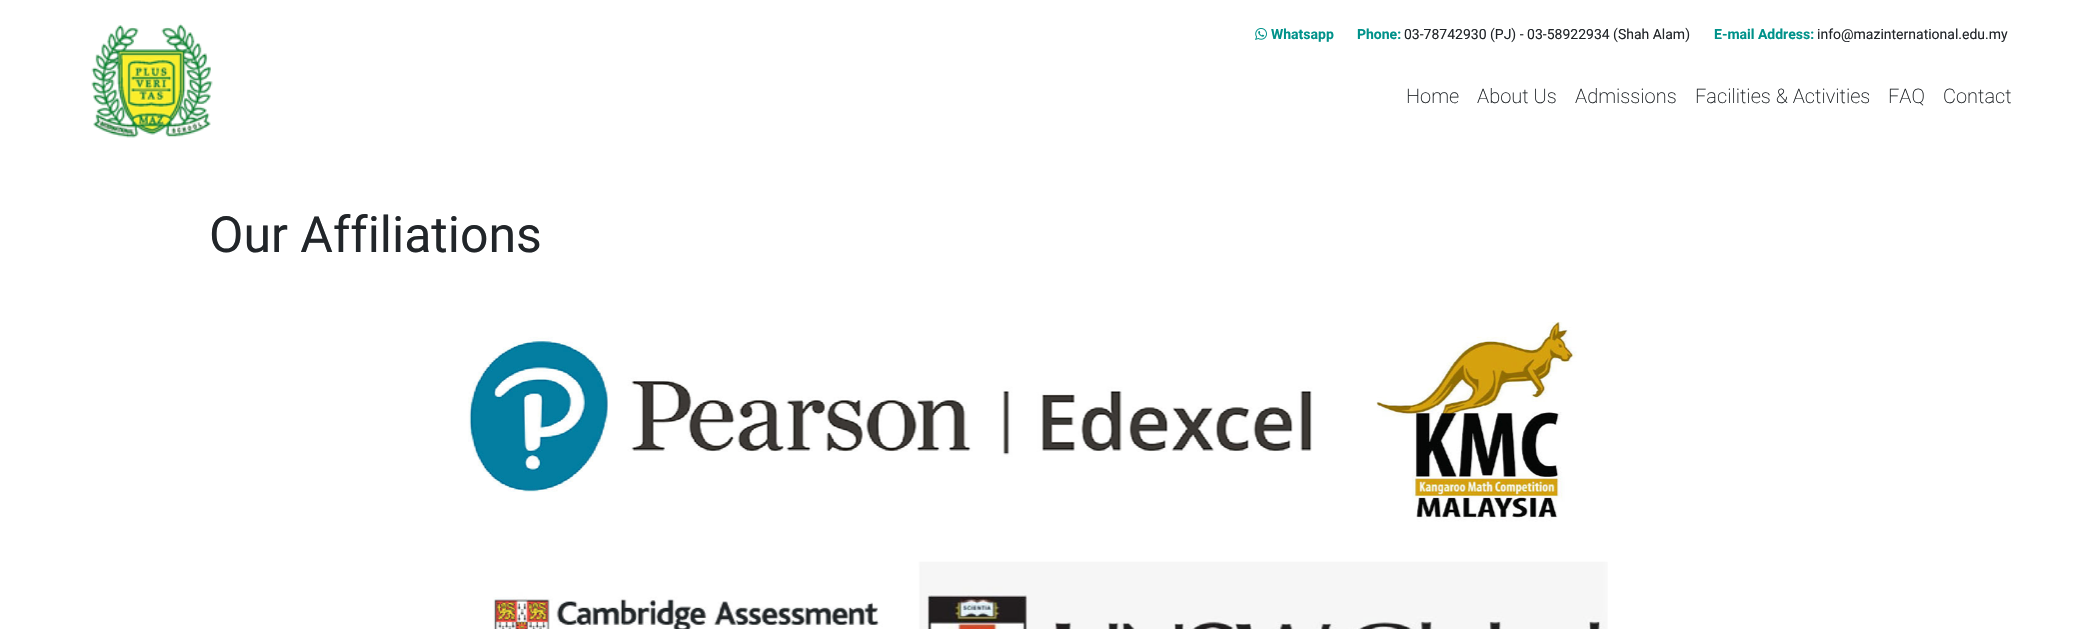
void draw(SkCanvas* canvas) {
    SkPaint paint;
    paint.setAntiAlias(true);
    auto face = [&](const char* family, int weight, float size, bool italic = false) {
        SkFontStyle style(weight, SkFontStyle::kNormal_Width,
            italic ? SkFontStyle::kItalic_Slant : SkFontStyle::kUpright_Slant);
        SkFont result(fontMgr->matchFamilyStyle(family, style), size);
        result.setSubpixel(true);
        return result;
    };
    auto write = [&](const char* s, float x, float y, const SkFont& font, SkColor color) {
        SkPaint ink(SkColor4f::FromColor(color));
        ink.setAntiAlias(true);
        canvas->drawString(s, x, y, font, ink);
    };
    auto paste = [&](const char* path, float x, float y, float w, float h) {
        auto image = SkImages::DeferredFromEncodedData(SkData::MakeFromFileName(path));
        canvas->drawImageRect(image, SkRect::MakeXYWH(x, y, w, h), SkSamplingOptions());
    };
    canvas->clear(SK_ColorWHITE);
    paste("pic1.png", 91, 23, 122, 115);
    paste("pic2.png", 1255, 28, 12, 12);
    auto kFont1 = face("Roboto", 700, 14);
    write("Whatsapp", 1271, 39, kFont1, SkColorSetRGB(0, 146, 138));
    write("Phone:", 1357, 39, kFont1, SkColorSetRGB(0, 146, 138));
    auto kFont2 = face("Roboto", 400, 14);
    write("03-78742930 (PJ) - 03-58922934 (Shah Alam)", 1404, 39, kFont2, SkColorSetRGB(33, 37, 41));
    write("E-mail Address:", 1714, 39, kFont1, SkColorSetRGB(0, 146, 138));
    write("info@mazinternational.edu.my", 1817, 39, kFont2, SkColorSetRGB(33, 37, 41));
    auto kFont3 = face("Roboto", 200, 20);
    write("Home", 1406, 103, kFont3, SkColorSetRGB(33, 37, 41));
    write("About Us", 1477, 103, kFont3, SkColorSetRGB(33, 37, 41));
    write("Admissions", 1575, 103, kFont3, SkColorSetRGB(33, 37, 41));
    write("Facilities & Activities", 1695, 103, kFont3, SkColorSetRGB(33, 37, 41));
    write("FAQ", 1888, 103, kFont3, SkColorSetRGB(33, 37, 41));
    write("Contact", 1943, 103, kFont3, SkColorSetRGB(33, 37, 41));
    auto kFont4 = face("Roboto", 400, 50);
    write("Our Affiliations", 209, 252, kFont4, SkColorSetRGB(33, 37, 41));
    paste("pic3.png", 468, 321, 1140, 308);
}
